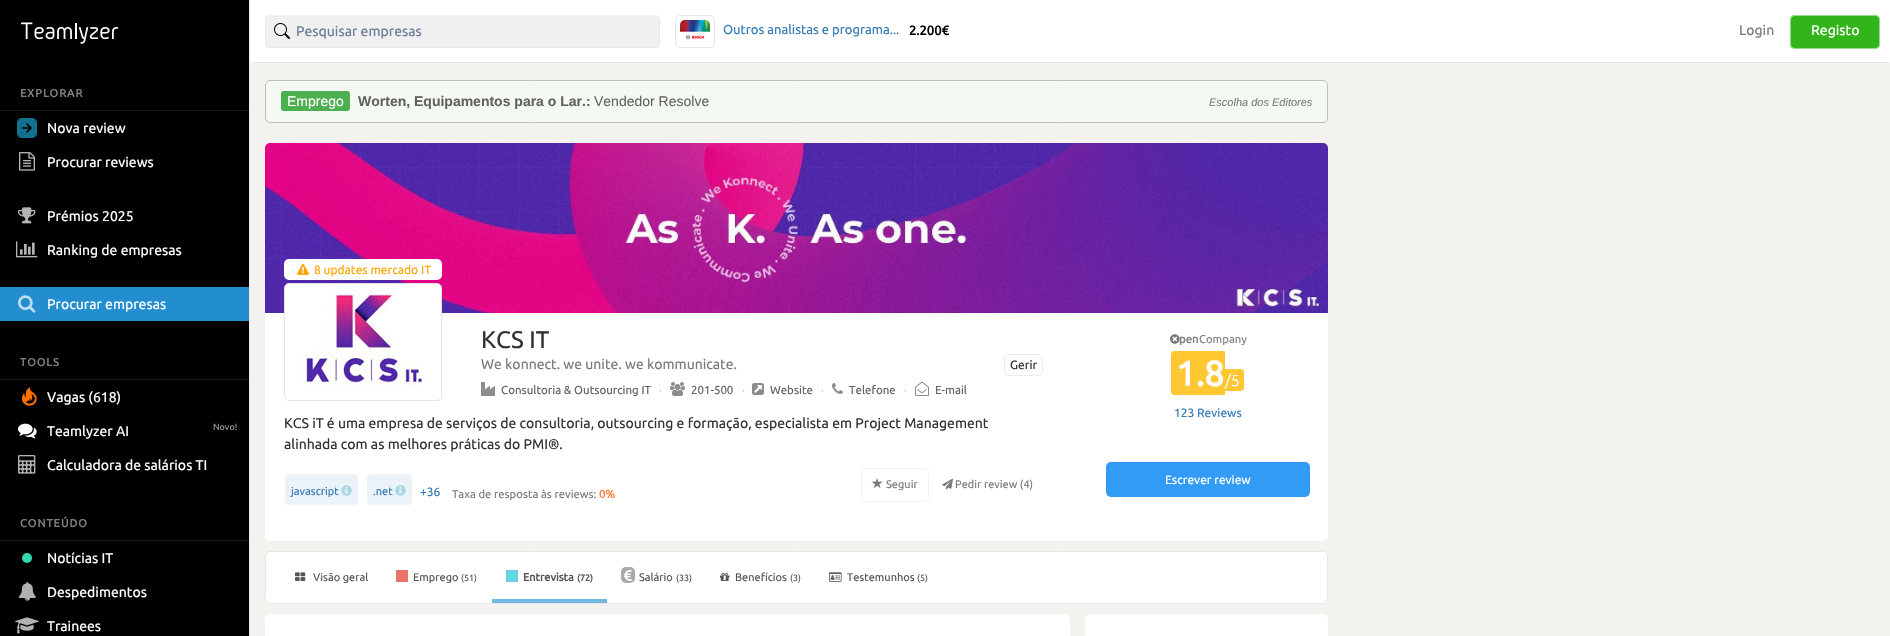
void draw(SkCanvas* canvas) {
    SkPaint paint;
    paint.setAntiAlias(true);
    auto face = [&](const char* family, int weight, float size, bool italic = false) {
        SkFontStyle style(weight, SkFontStyle::kNormal_Width,
            italic ? SkFontStyle::kItalic_Slant : SkFontStyle::kUpright_Slant);
        SkFont result(fontMgr->matchFamilyStyle(family, style), size);
        result.setSubpixel(true);
        return result;
    };
    auto write = [&](const char* s, float x, float y, const SkFont& font, SkColor color) {
        SkPaint ink(SkColor4f::FromColor(color));
        ink.setAntiAlias(true);
        canvas->drawString(s, x, y, font, ink);
    };
    auto writeSpaced = [&](const char* s, float x, float y, const SkFont& font, const SkPaint& ink, float letter, float word) {
        std::vector<SkGlyphID> glyphs(font.countText(s, strlen(s), SkTextEncoding::kUTF8));
        std::vector<float> xs(glyphs.size());
        font.textToGlyphs(s, strlen(s), SkTextEncoding::kUTF8, glyphs);
        font.getXPos(glyphs, xs, x);
        float extra = 0;
        for (size_t i = 0; i < glyphs.size(); i++) {
            xs[i] += extra;
            extra += letter + word * (glyphs[i] == font.unicharToGlyph(' '));
        }
        canvas->drawTextBlob(SkTextBlob::MakeFromPosHGlyphs(glyphs, xs, y, font), 0, 0, ink);
    };
    auto block = [&](float x, float y, float w, float h, SkColor color) {
        SkPaint ink(SkColor4f::FromColor(color));
        ink.setAntiAlias(true);
        canvas->drawRect(SkRect::MakeXYWH(x, y, w, h), ink);
    };
    auto card = [&](float x, float y, float w, float h, float radius, SkColor color) {
        SkPaint ink(SkColor4f::FromColor(color));
        ink.setAntiAlias(true);
        canvas->drawRoundRect(SkRect::MakeXYWH(x, y, w, h), radius, radius, ink);
    };
    auto paste = [&](const char* path, float x, float y, float w, float h) {
        auto image = SkImages::DeferredFromEncodedData(SkData::MakeFromFileName(path));
        canvas->drawImageRect(image, SkRect::MakeXYWH(x, y, w, h), SkSamplingOptions());
    };
    canvas->clear(SkColorSetRGB(243, 242, 239));
    block(0, 0, 249, 636, SK_ColorBLACK);
    block(249, 0, 1, 636, SkColorSetRGB(231, 231, 231));
    paste("pic1.png", 21, 22, 98, 22);
    block(0, 110, 249, 1, SkColorSetRGB(26, 26, 26));
    auto kFont1 = face("Ubuntu", 700, 11);
    paint.setColor(SkColorSetRGB(128, 128, 128));
    writeSpaced("EXPLORAR", 20, 97, kFont1, paint, 1, 0);
    paste("pic2.png", 17, 118, 20, 20);
    auto kFont2 = face("Ubuntu", 400, 14);
    write("Nova review", 47, 133, kFont2, SK_ColorWHITE);
    paste("pic3.png", 19, 152, 16, 19);
    write("Procurar reviews", 47, 167, kFont2, SK_ColorWHITE);
    paste("pic4.png", 18, 207, 18, 17);
    write("Prémios 2025", 47, 221, kFont2, SK_ColorWHITE);
    paste("pic5.png", 16, 241, 22, 17);
    write("Ranking de empresas", 47, 255, kFont2, SK_ColorWHITE);
    block(0, 287, 249, 34, SkColorSetRGB(34, 142, 207));
    paste("pic6.png", 18, 295, 18, 18);
    write("Procurar empresas", 47, 309, kFont2, SK_ColorWHITE);
    block(0, 379, 249, 1, SkColorSetRGB(26, 26, 26));
    writeSpaced("TOOLS", 20, 366, kFont1, paint, 1, 0);
    paste("pic7.png", 22, 387, 15, 19);
    write("Vagas (618)", 47, 402, kFont2, SK_ColorWHITE);
    paste("pic8.png", 18, 423, 19, 16);
    write("Teamlyzer AI", 47, 436, kFont2, SK_ColorWHITE);
    auto kFont3 = face("Ubuntu", 400, 9);
    write("Novo!", 213, 430, kFont3, SkColorSetRGB(156, 156, 156));
    paste("pic9.png", 18, 455, 18, 19);
    write("Calculadora de salários TI", 47, 470, kFont2, SK_ColorWHITE);
    block(0, 540, 249, 1, SkColorSetRGB(26, 26, 26));
    writeSpaced("CONTEÚDO", 20, 527, kFont1, paint, 1, 0);
    paint.setColor(SkColorSetRGB(51, 217, 178));
    canvas->drawCircle(27, 558, 5, paint);
    write("Notícias IT", 47, 563, kFont2, SK_ColorWHITE);
    paste("pic10.png", 18, 582, 18, 19);
    write("Despedimentos", 47, 597, kFont2, SK_ColorWHITE);
    paste("pic11.png", 15, 617, 24, 17);
    write("Trainees", 47, 631, kFont2, SK_ColorWHITE);
    block(253, 62, 1635, 1, SkColorSetRGB(231, 231, 231));
    block(250, 0, 1640, 62, SK_ColorWHITE);
    paint.setColor(SkColorSetRGB(240, 240, 240));
    canvas->drawPath(SkPathBuilder().moveTo(270, 15).lineTo(655, 15).cubicTo(657, 15, 659, 17, 659, 20).lineTo(659, 43).cubicTo(659, 45, 657, 47, 655, 47).lineTo(270, 47).cubicTo(268, 47, 266, 45, 266, 43).lineTo(266, 20).cubicTo(266, 17, 268, 15, 270, 15).close().detach(), paint);
    paste("pic12.png", 274, 23, 16, 16);
    paint.setColor(SkColorSetRGB(231, 231, 231));
    canvas->drawPath(SkPathBuilder(SkPathFillType::kEvenOdd).moveTo(270, 15).lineTo(655, 15).cubicTo(658, 15, 660, 17, 660, 20).lineTo(660, 43).cubicTo(660, 46, 658, 48, 655, 48).lineTo(270, 48).cubicTo(267, 48, 265, 46, 265, 43).lineTo(265, 20).cubicTo(265, 17, 267, 15, 270, 15).close().moveTo(270, 15).lineTo(655, 15).cubicTo(657, 15, 659, 17, 659, 20).lineTo(659, 43).cubicTo(659, 45, 657, 47, 655, 47).lineTo(270, 47).cubicTo(268, 47, 266, 45, 266, 43).lineTo(266, 20).cubicTo(266, 17, 268, 15, 270, 15).close().detach(), paint);
    write("Pesquisar empresas", 296, 36, kFont2, SkColorSetRGB(107, 122, 150));
    paint.setStyle(SkPaint::kStroke_Style);
    paint.setStrokeWidth(1);
    paint.setColor(SkColorSetRGB(232, 231, 231));
    canvas->drawRoundRect(SkRect::MakeXYWH(675.5f, 15.5f, 39, 32), 4.5f, 4.5f, paint);
    paste("pic13.png", 680, 20, 30, 20);
    auto kFont4 = face("Ubuntu", 400, 13);
    write("Outros analistas e programa...", 723, 34, kFont4, SkColorSetRGB(51, 122, 183));
    auto kFont5 = face("Ubuntu", 700, 13);
    write("2.200€", 909, 35, kFont5, SK_ColorBLACK);
    write("Login", 1739, 35, kFont2, SkColorSetRGB(122, 124, 121));
    card(1790, 15, 90, 34, 5, SkColorSetRGB(49, 181, 27));
    paint.setColor(SkColorSetARGB(128, 255, 255, 255));
    canvas->drawRoundRect(SkRect::MakeXYWH(1790.5f, 15.5f, 89, 33), 4.5f, 4.5f, paint);
    write("Registo", 1811, 35, kFont2, SK_ColorWHITE);
    paint.setStyle(SkPaint::kFill_Style);
    paint.setColor(SkColorSetARGB(128, 245, 255, 245));
    canvas->drawRoundRect(SkRect::MakeXYWH(265.5f, 80.5f, 1062, 42), 4.5f, 4.5f, paint);
    paint.setStyle(SkPaint::kStroke_Style);
    paint.setColor(SkColorSetRGB(191, 191, 191));
    canvas->drawRoundRect(SkRect::MakeXYWH(265.5f, 80.5f, 1062, 42), 4.5f, 4.5f, paint);
    card(281, 91, 69, 20, 3, SkColorSetRGB(76, 175, 80));
    auto kFont6 = face("Liberation Sans", 400, 14);
    write("Emprego", 287, 106, kFont6, SK_ColorWHITE);
    auto kFont7 = face("Liberation Sans", 700, 14);
    write("Worten, Equipamentos para o Lar.:", 358, 106, kFont7, SkColorSetRGB(98, 99, 97));
    write("Vendedor Resolve", 594, 106, kFont6, SkColorSetRGB(98, 99, 97));
    auto kFont8 = face("Liberation Sans", 400, 11, true);
    write("Escolha dos Editores", 1209, 106, kFont8, SkColorSetRGB(122, 124, 121));
    paste("pic14.png", 265, 143, 1063, 170);
    paint.setStyle(SkPaint::kFill_Style);
    paint.setColor(SK_ColorWHITE);
    canvas->drawPath(SkPathBuilder().moveTo(265, 313).lineTo(1062, 313).lineTo(1062, 541).lineTo(270, 541).cubicTo(267, 541, 265, 539, 265, 536).close().detach(), paint);
    card(284, 259, 158, 21, 5, SK_ColorWHITE);
    paste("pic15.png", 297, 263, 12, 12);
    auto kFont9 = face("Ubuntu", 400, 12);
    write("8 updates mercado IT", 314, 274, kFont9, SkColorSetRGB(255, 165, 0));
    canvas->drawRoundRect(SkRect::MakeXYWH(284.5f, 283.5f, 157, 117), 4.5f, 4.5f, paint);
    paint.setStyle(SkPaint::kStroke_Style);
    paint.setColor(SkColorSetRGB(228, 228, 228));
    canvas->drawRoundRect(SkRect::MakeXYWH(284.5f, 283.5f, 157, 117), 4.5f, 4.5f, paint);
    paste("pic16.png", 301, 288, 127, 104);
    auto kFont10 = face("Ubuntu", 400, 24);
    write("KCS IT", 481, 348, kFont10, SkColorSetRGB(51, 51, 51));
    write("We konnect. we unite. we kommunicate.", 481, 369, kFont2, SkColorSetRGB(122, 124, 121));
    paint.setColor(SkColorSetRGB(233, 235, 238));
    canvas->drawRoundRect(SkRect::MakeXYWH(1004.5f, 354.5f, 38, 21), 4.5f, 4.5f, paint);
    write("Gerir", 1010, 369, kFont9, SkColorSetRGB(51, 51, 51));
    paste("pic17.png", 481, 382, 14, 14);
    auto kFont11 = face("Ubuntu", 400, 11.5f);
    write("Consultoria & Outsourcing IT", 501, 394, kFont11, SkColorSetRGB(98, 99, 97));
    write("·", 659, 394, kFont11, SkColorSetRGB(204, 204, 204));
    paste("pic18.png", 670, 382, 15, 14);
    write("201-500", 691, 394, kFont11, SkColorSetRGB(98, 99, 97));
    write("·", 742, 394, kFont11, SkColorSetRGB(204, 204, 204));
    paste("pic19.png", 752, 383, 12, 12);
    write("Website", 770, 394, kFont11, SkColorSetRGB(98, 99, 97));
    write("·", 821, 394, kFont11, SkColorSetRGB(204, 204, 204));
    paste("pic20.png", 832, 383, 11, 11);
    write("Telefone", 849, 394, kFont11, SkColorSetRGB(98, 99, 97));
    write("·", 904, 394, kFont11, SkColorSetRGB(204, 204, 204));
    paste("pic21.png", 915, 382, 14, 14);
    write("E-mail", 935, 394, kFont11, SkColorSetRGB(98, 99, 97));
    write("KCS iT é uma empresa de serviços de consultoria, outsourcing e formação, especialista em Project Management", 284, 428, kFont2, SkColorSetRGB(51, 51, 51));
    write("alinhada com as melhores práticas do PMI®.", 284, 449, kFont2, SkColorSetRGB(51, 51, 51));
    paint.setStyle(SkPaint::kFill_Style);
    paint.setColor(SkColorSetRGB(236, 243, 248));
    canvas->drawRoundRect(SkRect::MakeXYWH(284.5f, 473.5f, 74, 32), 4.5f, 4.5f, paint);
    paint.setStyle(SkPaint::kStroke_Style);
    paint.setColor(SK_ColorWHITE);
    canvas->drawRoundRect(SkRect::MakeXYWH(284.5f, 473.5f, 74, 32), 4.5f, 4.5f, paint);
    auto kFont12 = face("Ubuntu", 400, 11);
    write("javascript", 291, 495, kFont12, SkColorSetRGB(51, 122, 183));
    paste("pic22.png", 341, 485, 11, 11);
    paint.setStyle(SkPaint::kFill_Style);
    paint.setColor(SkColorSetRGB(236, 243, 248));
    canvas->drawRoundRect(SkRect::MakeXYWH(366.5f, 473.5f, 46, 32), 4.5f, 4.5f, paint);
    paint.setStyle(SkPaint::kStroke_Style);
    paint.setColor(SK_ColorWHITE);
    canvas->drawRoundRect(SkRect::MakeXYWH(366.5f, 473.5f, 46, 32), 4.5f, 4.5f, paint);
    write(".net", 373, 495, kFont12, SkColorSetRGB(51, 122, 183));
    paste("pic22.png", 395, 485, 11, 11);
    write("+36", 420, 496, kFont9, SkColorSetRGB(51, 122, 183));
    auto kFont13 = face("Ubuntu", 400, 11.25f);
    write("Taxa de resposta às reviews:", 452, 498, kFont13, SkColorSetRGB(122, 124, 121));
    auto kFont14 = face("Ubuntu", 700, 11.25f);
    write("0%", 599, 498, kFont14, SkColorSetRGB(244, 136, 71));
    paint.setColor(SkColorSetRGB(241, 242, 244));
    canvas->drawRoundRect(SkRect::MakeXYWH(861.5f, 468.5f, 67, 33), 4.5f, 4.5f, paint);
    paste("pic23.png", 871, 478, 12, 10);
    write("Seguir", 886, 488, kFont12, SkColorSetRGB(122, 124, 121));
    paste("pic24.png", 942, 478, 11, 12);
    write("Pedir review (4)", 955, 488, kFont12, SkColorSetRGB(122, 124, 121));
    paint.setStyle(SkPaint::kFill_Style);
    paint.setColor(SK_ColorWHITE);
    canvas->drawPath(SkPathBuilder().moveTo(1062, 313).lineTo(1328, 313).lineTo(1328, 536).cubicTo(1328, 539, 1326, 541, 1323, 541).lineTo(1062, 541).close().detach(), paint);
    paste("pic25.png", 1170, 334, 10, 10);
    write("pen", 1179, 343, kFont14, SkColorSetRGB(128, 128, 128));
    write("Company", 1199, 343, kFont13, SkColorSetRGB(128, 128, 128));
    paint.setColor(SkColorSetRGB(255, 200, 51));
    canvas->drawPath(SkPathBuilder().moveTo(1174, 351).lineTo(1225, 351).lineTo(1225, 395).lineTo(1174, 395).cubicTo(1172.5f, 395, 1171, 393.5f, 1171, 392).lineTo(1171, 354).cubicTo(1171, 352.5f, 1172.5f, 351, 1174, 351).close().detach(), paint);
    auto kFont15 = face("Ubuntu", 700, 35);
    write("1.8", 1176, 386, kFont15, SK_ColorWHITE);
    canvas->drawPath(SkPathBuilder().moveTo(1225, 369).lineTo(1241, 369).cubicTo(1242.5f, 369, 1244, 370.5f, 1244, 372).lineTo(1244, 388).cubicTo(1244, 389.5f, 1242.5f, 391, 1241, 391).lineTo(1225, 391).close().detach(), paint);
    auto kFont16 = face("Ubuntu", 300, 16);
    write("/5", 1225, 386, kFont16, SK_ColorWHITE);
    write("123 Reviews", 1174, 417, kFont9, SkColorSetRGB(51, 122, 183));
    card(1106, 462, 204, 35, 5, SkColorSetRGB(49, 155, 245));
    write("Escrever review", 1165, 484, kFont9, SK_ColorWHITE);
    paint.setColor(SK_ColorWHITE);
    canvas->drawRoundRect(SkRect::MakeXYWH(265.5f, 551.5f, 1062, 52), 4.5f, 4.5f, paint);
    paint.setStyle(SkPaint::kStroke_Style);
    paint.setColor(SkColorSetRGB(231, 231, 231));
    canvas->drawRoundRect(SkRect::MakeXYWH(265.5f, 551.5f, 1062, 52), 4.5f, 4.5f, paint);
    paste("pic26.png", 295, 572, 11, 9);
    write("Visão geral", 313, 581, kFont12, SkColorSetRGB(86, 86, 86));
    block(396, 570, 12, 12, SkColorSetRGB(232, 116, 103));
    write("Emprego", 413, 581, kFont12, SkColorSetRGB(86, 86, 86));
    write("(51)", 461, 581, kFont3, SkColorSetRGB(86, 86, 86));
    block(492, 599, 115, 4, SkColorSetRGB(113, 183, 225));
    block(506, 570, 12, 12, SkColorSetRGB(102, 214, 226));
    write("Entrevista", 523, 581, kFont1, SkColorSetRGB(86, 86, 86));
    auto kFont17 = face("Ubuntu", 700, 9);
    write("(72)", 577, 581, kFont17, SkColorSetRGB(86, 86, 86));
    card(621, 567, 14, 16, 5, SkColorSetRGB(170, 170, 170));
    paste("pic27.png", 624, 570, 8, 11);
    write("Salário", 639, 581, kFont12, SkColorSetRGB(86, 86, 86));
    write("(33)", 676, 581, kFont3, SkColorSetRGB(86, 86, 86));
    paste("pic28.png", 720, 572, 10, 9);
    write("Benefícios", 735, 581, kFont12, SkColorSetRGB(86, 86, 86));
    write("(3)", 790, 581, kFont3, SkColorSetRGB(86, 86, 86));
    paste("pic29.png", 829, 572, 13, 10);
    write("Testemunhos", 847, 581, kFont12, SkColorSetRGB(86, 86, 86));
    write("(5)", 917, 581, kFont3, SkColorSetRGB(86, 86, 86));
    card(265, 614, 805, 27, 5, SK_ColorWHITE);
    card(1085, 614, 243, 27, 5, SK_ColorWHITE);
}
